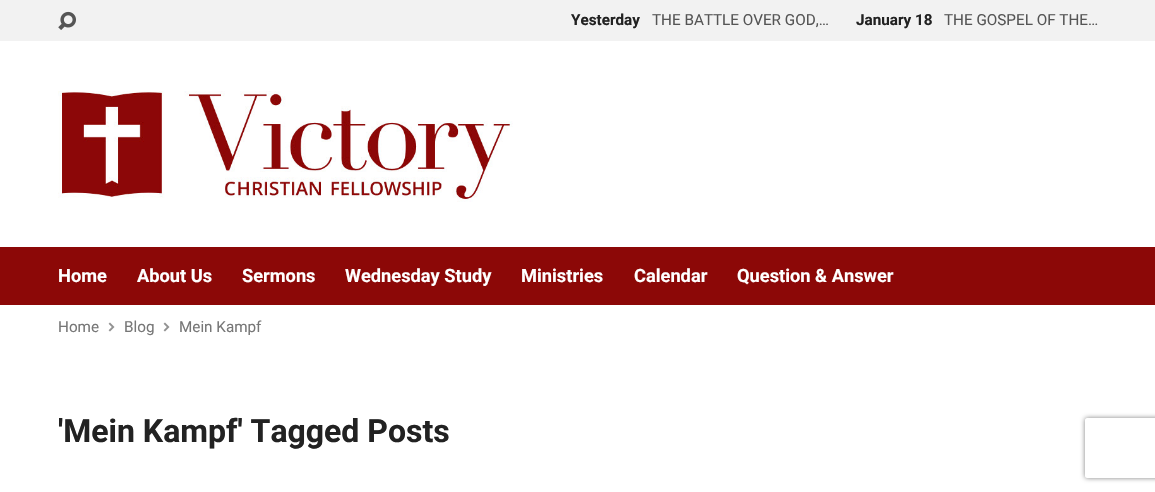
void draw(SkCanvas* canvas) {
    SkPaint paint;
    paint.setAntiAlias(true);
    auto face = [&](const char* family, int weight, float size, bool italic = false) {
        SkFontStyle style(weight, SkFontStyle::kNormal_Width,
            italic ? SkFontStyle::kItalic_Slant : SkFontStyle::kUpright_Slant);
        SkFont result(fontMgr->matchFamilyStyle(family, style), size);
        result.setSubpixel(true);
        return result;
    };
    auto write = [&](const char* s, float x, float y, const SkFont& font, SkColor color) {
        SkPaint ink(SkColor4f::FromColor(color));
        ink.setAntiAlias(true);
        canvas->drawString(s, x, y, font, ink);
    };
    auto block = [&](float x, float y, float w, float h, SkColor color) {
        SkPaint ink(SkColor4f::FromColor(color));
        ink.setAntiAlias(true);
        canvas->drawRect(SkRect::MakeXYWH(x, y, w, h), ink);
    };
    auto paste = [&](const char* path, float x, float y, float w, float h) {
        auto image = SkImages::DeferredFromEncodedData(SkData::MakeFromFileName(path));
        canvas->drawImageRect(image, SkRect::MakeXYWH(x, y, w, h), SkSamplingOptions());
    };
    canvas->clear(SK_ColorWHITE);
    block(0, 0, 1155, 41, SkColorSetRGB(242, 242, 242));
    paste("pic1.png", 58, 11, 18, 19);
    auto kFont1 = face("Roboto", 700, 15.25f);
    write("Yesterday", 571, 25, kFont1, SkColorSetRGB(34, 34, 34));
    auto kFont2 = face("Roboto", 400, 15.25f);
    write("THE BATTLE OVER GOD,…", 652, 25, kFont2, SkColorSetRGB(85, 85, 85));
    write("January 18", 856, 25, kFont1, SkColorSetRGB(34, 34, 34));
    write("THE GOSPEL OF THE…", 944, 25, kFont2, SkColorSetRGB(85, 85, 85));
    paste("pic2.png", 58, 91, 455, 111);
    block(0, 247, 1155, 58, SkColorSetRGB(140, 8, 7));
    auto kFont3 = face("Roboto", 700, 18.25f);
    write("Home", 58, 282, kFont3, SK_ColorWHITE);
    write("About Us", 137, 282, kFont3, SK_ColorWHITE);
    write("Sermons", 242, 282, kFont3, SK_ColorWHITE);
    write("Wednesday Study", 345, 282, kFont3, SK_ColorWHITE);
    write("Ministries", 521, 282, kFont3, SK_ColorWHITE);
    write("Calendar", 634, 282, kFont3, SK_ColorWHITE);
    write("Question & Answer", 737, 282, kFont3, SK_ColorWHITE);
    write("Home", 58, 332, kFont2, SkColorSetRGB(119, 119, 119));
    paste("pic3.png", 108, 322, 7, 10);
    write("Blog", 124, 332, kFont2, SkColorSetRGB(119, 119, 119));
    paste("pic3.png", 163, 322, 7, 10);
    write("Mein Kampf", 179, 332, kFont2, SkColorSetRGB(119, 119, 119));
    auto kFont4 = face("Roboto", 700, 32);
    write("'Mein Kampf' Tagged Posts", 58, 442, kFont4, SkColorSetRGB(34, 34, 34));
    canvas->save();
    canvas->clipPath(SkPathBuilder(SkPathFillType::kEvenOdd).moveTo(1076, 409).lineTo(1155, 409).lineTo(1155, 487).lineTo(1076, 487).close().moveTo(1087, 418).lineTo(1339, 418).cubicTo(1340, 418, 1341, 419, 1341, 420).lineTo(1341, 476).cubicTo(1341, 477, 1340, 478, 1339, 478).lineTo(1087, 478).cubicTo(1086, 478, 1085, 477, 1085, 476).lineTo(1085, 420).cubicTo(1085, 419, 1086, 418, 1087, 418).close().detach(), true);
    paint.setColor(SkColorSetRGB(128, 128, 128));
    paint.setMaskFilter(SkMaskFilter::MakeBlur(kNormal_SkBlurStyle, 2.5f));
    canvas->drawRoundRect(SkRect::MakeXYWH(1085, 418, 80, 60), 2, 2, paint);
    paint.setMaskFilter(nullptr);
    canvas->restore();
}
